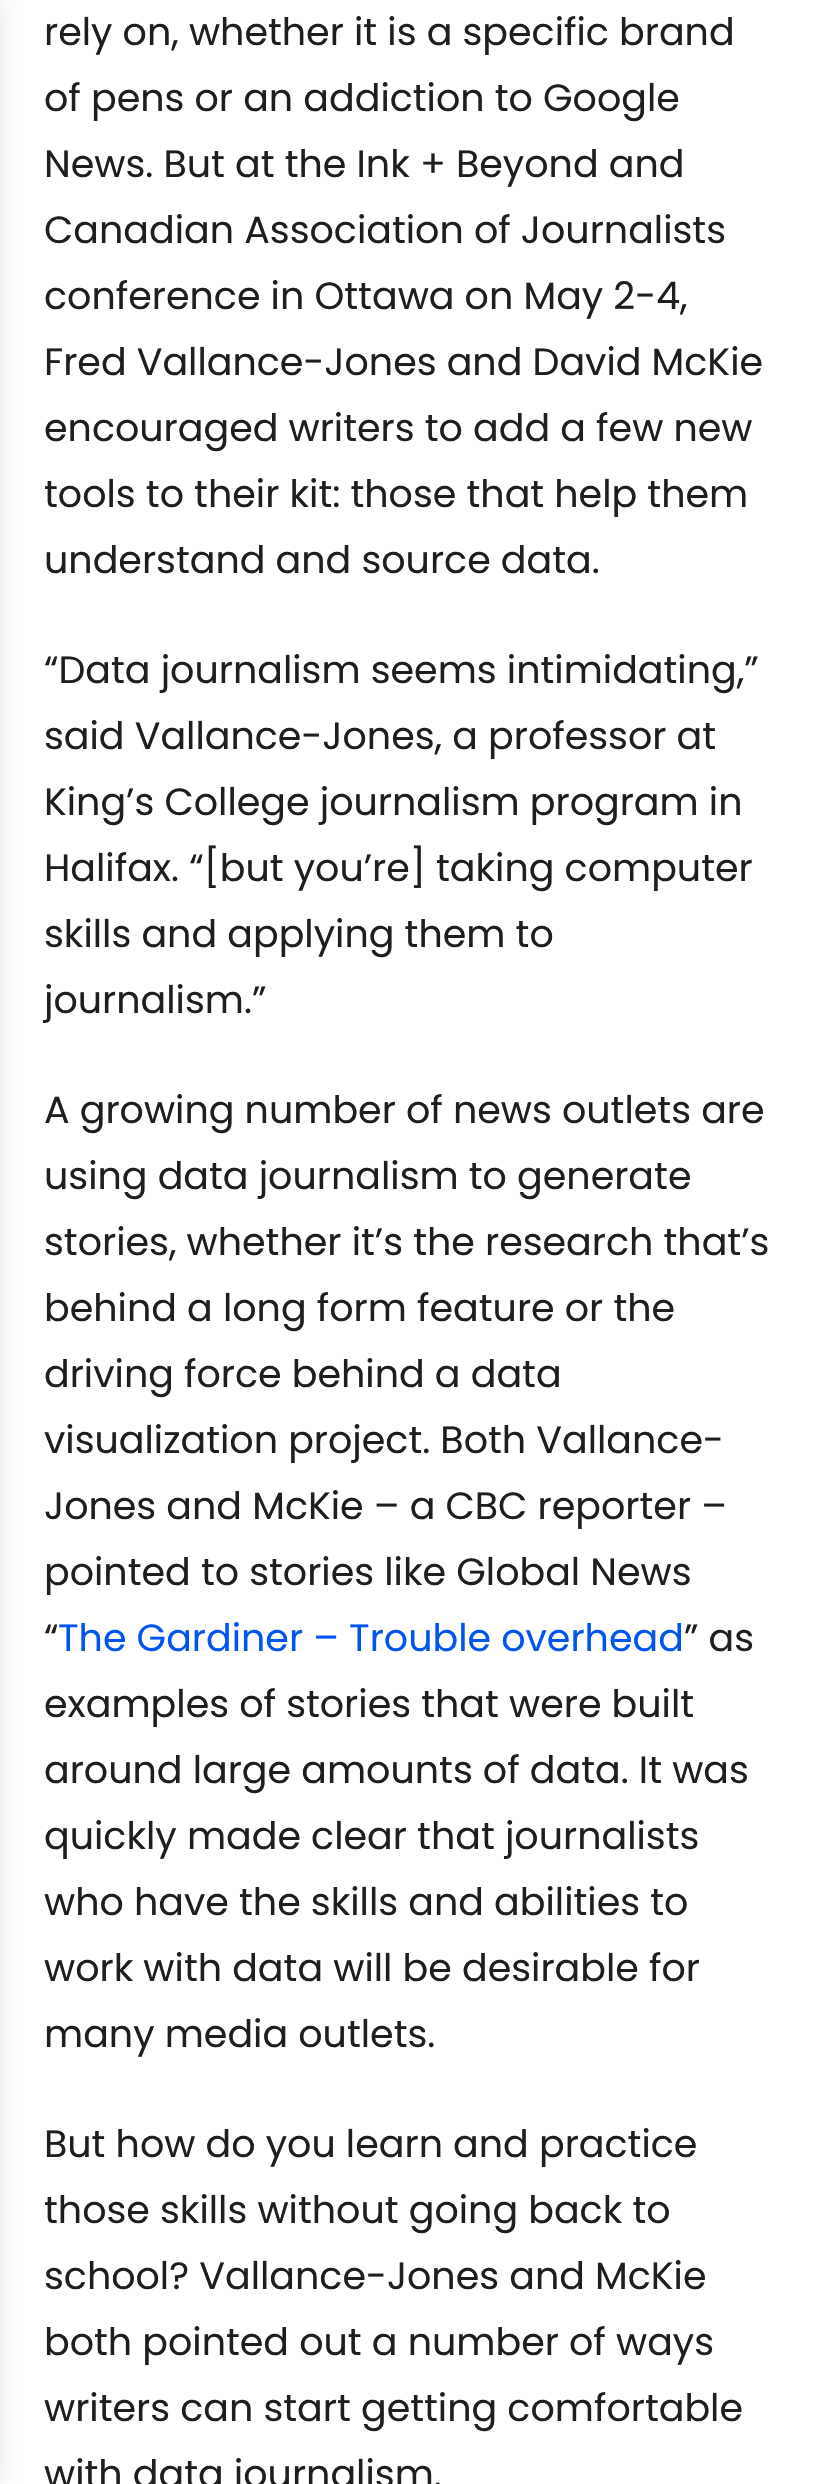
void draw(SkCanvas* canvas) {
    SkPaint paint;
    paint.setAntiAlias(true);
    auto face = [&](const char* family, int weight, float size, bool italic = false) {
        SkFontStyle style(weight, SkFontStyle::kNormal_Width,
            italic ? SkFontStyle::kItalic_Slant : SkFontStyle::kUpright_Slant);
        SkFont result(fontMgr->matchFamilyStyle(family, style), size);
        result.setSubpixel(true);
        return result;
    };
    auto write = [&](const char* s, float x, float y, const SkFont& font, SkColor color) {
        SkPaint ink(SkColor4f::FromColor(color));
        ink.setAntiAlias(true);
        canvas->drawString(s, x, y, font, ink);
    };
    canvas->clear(SK_ColorWHITE);
    paint.setColor(SkColorSetARGB(26, 0, 0, 0));
    paint.setMaskFilter(SkMaskFilter::MakeBlur(kNormal_SkBlurStyle, 10));
    canvas->drawRect(SkRect::MakeXYWH(-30, 0, 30, 2484), paint);
    paint.setMaskFilter(nullptr);
    auto kFont1 = face("Poppins", 400, 38);
    write("rely on, whether it is a specific brand", 44, 45, kFont1, SkColorSetRGB(30, 30, 30));
    write("of pens or an addiction to Google", 44, 111, kFont1, SkColorSetRGB(30, 30, 30));
    write("News. But at the Ink + Beyond and", 44, 177, kFont1, SkColorSetRGB(30, 30, 30));
    write("Canadian Association of Journalists", 44, 243, kFont1, SkColorSetRGB(30, 30, 30));
    write("conference in Ottawa on May 2-4,", 44, 309, kFont1, SkColorSetRGB(30, 30, 30));
    write("Fred Vallance-Jones and David McKie", 44, 375, kFont1, SkColorSetRGB(30, 30, 30));
    write("encouraged writers to add a few new", 44, 441, kFont1, SkColorSetRGB(30, 30, 30));
    write("tools to their kit: those that help them", 44, 507, kFont1, SkColorSetRGB(30, 30, 30));
    write("understand and source data.", 44, 573, kFont1, SkColorSetRGB(30, 30, 30));
    write("“Data journalism seems intimidating,”", 44, 683, kFont1, SkColorSetRGB(30, 30, 30));
    write("said Vallance-Jones, a professor at", 44, 749, kFont1, SkColorSetRGB(30, 30, 30));
    write("King’s College journalism program in", 44, 815, kFont1, SkColorSetRGB(30, 30, 30));
    write("Halifax. “[but you’re] taking computer", 44, 881, kFont1, SkColorSetRGB(30, 30, 30));
    write("skills and applying them to", 44, 947, kFont1, SkColorSetRGB(30, 30, 30));
    write("journalism.”", 44, 1013, kFont1, SkColorSetRGB(30, 30, 30));
    write("A growing number of news outlets are", 44, 1123, kFont1, SkColorSetRGB(30, 30, 30));
    write("using data journalism to generate", 44, 1189, kFont1, SkColorSetRGB(30, 30, 30));
    write("stories, whether it’s the research that’s", 44, 1255, kFont1, SkColorSetRGB(30, 30, 30));
    write("behind a long form feature or the", 44, 1321, kFont1, SkColorSetRGB(30, 30, 30));
    write("driving force behind a data", 44, 1387, kFont1, SkColorSetRGB(30, 30, 30));
    write("visualization project. Both Vallance-", 44, 1453, kFont1, SkColorSetRGB(30, 30, 30));
    write("Jones and McKie – a CBC reporter –", 44, 1519, kFont1, SkColorSetRGB(30, 30, 30));
    write("pointed to stories like Global News", 44, 1585, kFont1, SkColorSetRGB(30, 30, 30));
    write("“", 44, 1651, kFont1, SkColorSetRGB(30, 30, 30));
    write("The Gardiner – Trouble overhead", 58, 1651, kFont1, SkColorSetRGB(0, 85, 241));
    write("” as", 684, 1651, kFont1, SkColorSetRGB(30, 30, 30));
    write("examples of stories that were built", 44, 1717, kFont1, SkColorSetRGB(30, 30, 30));
    write("around large amounts of data. It was", 44, 1783, kFont1, SkColorSetRGB(30, 30, 30));
    write("quickly made clear that journalists", 44, 1849, kFont1, SkColorSetRGB(30, 30, 30));
    write("who have the skills and abilities to", 44, 1915, kFont1, SkColorSetRGB(30, 30, 30));
    write("work with data will be desirable for", 44, 1981, kFont1, SkColorSetRGB(30, 30, 30));
    write("many media outlets.", 44, 2047, kFont1, SkColorSetRGB(30, 30, 30));
    write("But how do you learn and practice", 44, 2157, kFont1, SkColorSetRGB(30, 30, 30));
    write("those skills without going back to", 44, 2223, kFont1, SkColorSetRGB(30, 30, 30));
    write("school? Vallance-Jones and McKie", 44, 2289, kFont1, SkColorSetRGB(30, 30, 30));
    write("both pointed out a number of ways", 44, 2355, kFont1, SkColorSetRGB(30, 30, 30));
    write("writers can start getting comfortable", 44, 2421, kFont1, SkColorSetRGB(30, 30, 30));
    write("with data journalism.", 44, 2487, kFont1, SkColorSetRGB(30, 30, 30));
}
